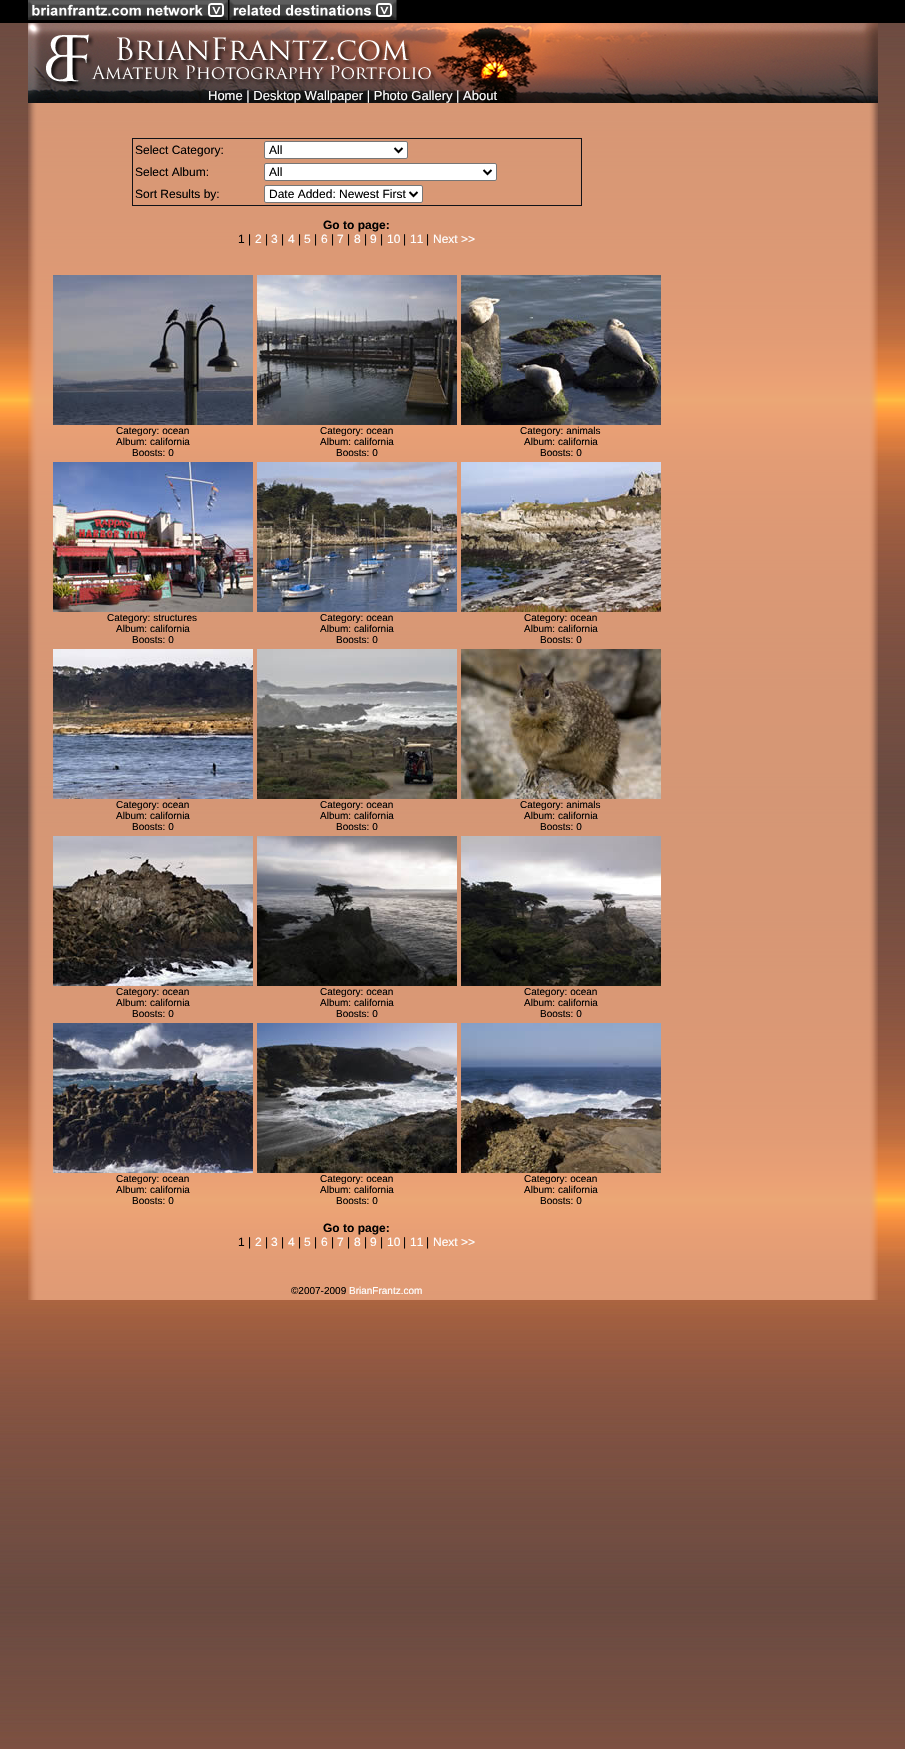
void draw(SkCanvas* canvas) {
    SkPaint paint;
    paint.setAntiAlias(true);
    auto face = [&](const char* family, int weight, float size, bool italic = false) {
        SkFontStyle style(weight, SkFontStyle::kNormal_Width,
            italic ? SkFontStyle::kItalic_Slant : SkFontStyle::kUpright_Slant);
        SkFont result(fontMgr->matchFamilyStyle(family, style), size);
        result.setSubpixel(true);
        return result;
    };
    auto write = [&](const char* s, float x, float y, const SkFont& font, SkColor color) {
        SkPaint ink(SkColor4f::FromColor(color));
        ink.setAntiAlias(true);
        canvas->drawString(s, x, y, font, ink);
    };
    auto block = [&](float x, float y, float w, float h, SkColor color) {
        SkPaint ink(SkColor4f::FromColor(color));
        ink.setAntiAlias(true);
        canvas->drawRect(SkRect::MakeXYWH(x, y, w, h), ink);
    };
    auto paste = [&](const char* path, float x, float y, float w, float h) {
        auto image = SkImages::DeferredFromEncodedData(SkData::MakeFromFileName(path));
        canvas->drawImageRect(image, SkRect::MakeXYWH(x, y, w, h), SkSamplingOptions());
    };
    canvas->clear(SK_ColorWHITE);
    paste("pic1.png", 0, 23, 905, 1726);
    block(0, 0, 905, 23, SK_ColorBLACK);
    paste("pic2.png", 28, 0, 200, 20);
    paste("pic3.png", 229, 0, 168, 20);
    paste("pic4.png", 28, 23, 850, 80);
    auto kFont1 = face("Liberation Sans", 400, 13);
    write("Home | Desktop Wallpaper | Photo Gallery | About", 208, 100, kFont1, SK_ColorWHITE);
    paste("pic5.png", 28, 103, 850, 1197);
    paint.setStyle(SkPaint::kStroke_Style);
    paint.setStrokeWidth(1);
    paint.setColor(SkColorSetRGB(17, 18, 23));
    canvas->drawRect(SkRect::MakeXYWH(132.5f, 138.5f, 449, 67), paint);
    auto kFont2 = face("Liberation Sans", 400, 12);
    write("Select Category:", 135, 154, kFont2, SK_ColorBLACK);
    paint.setStyle(SkPaint::kFill_Style);
    paint.setColor(SK_ColorWHITE);
    canvas->drawRoundRect(SkRect::MakeXYWH(264.5f, 141.5f, 143, 17), 1.5f, 1.5f, paint);
    paint.setStyle(SkPaint::kStroke_Style);
    paint.setColor(SkColorSetRGB(118, 118, 118));
    canvas->drawRoundRect(SkRect::MakeXYWH(264.5f, 141.5f, 143, 17), 1.5f, 1.5f, paint);
    paint.setStrokeWidth(2);
    paint.setColor(SK_ColorBLACK);
    canvas->drawPath(SkPathBuilder().moveTo(394.5f, 148).lineTo(398.5f, 152).lineTo(402.5f, 148).detach(), paint);
    write("All", 269, 154, kFont2, SK_ColorBLACK);
    write("Select Album:", 135, 176, kFont2, SK_ColorBLACK);
    paint.setStyle(SkPaint::kFill_Style);
    paint.setColor(SK_ColorWHITE);
    canvas->drawRoundRect(SkRect::MakeXYWH(264.5f, 163.5f, 232, 17), 1.5f, 1.5f, paint);
    paint.setStyle(SkPaint::kStroke_Style);
    paint.setStrokeWidth(1);
    paint.setColor(SkColorSetRGB(118, 118, 118));
    canvas->drawRoundRect(SkRect::MakeXYWH(264.5f, 163.5f, 232, 17), 1.5f, 1.5f, paint);
    paint.setStrokeWidth(2);
    paint.setColor(SK_ColorBLACK);
    canvas->drawPath(SkPathBuilder().moveTo(483.5f, 170).lineTo(487.5f, 174).lineTo(491.5f, 170).detach(), paint);
    write("All", 269, 176, kFont2, SK_ColorBLACK);
    write("Sort Results by:", 135, 198, kFont2, SK_ColorBLACK);
    paint.setStyle(SkPaint::kFill_Style);
    paint.setColor(SK_ColorWHITE);
    canvas->drawRoundRect(SkRect::MakeXYWH(264.5f, 185.5f, 158, 17), 1.5f, 1.5f, paint);
    paint.setStyle(SkPaint::kStroke_Style);
    paint.setStrokeWidth(1);
    paint.setColor(SkColorSetRGB(118, 118, 118));
    canvas->drawRoundRect(SkRect::MakeXYWH(264.5f, 185.5f, 158, 17), 1.5f, 1.5f, paint);
    paint.setStrokeWidth(2);
    paint.setColor(SK_ColorBLACK);
    canvas->drawPath(SkPathBuilder().moveTo(409.5f, 192).lineTo(413.5f, 196).lineTo(417.5f, 192).detach(), paint);
    write("Date Added: Newest First", 269, 198, kFont2, SK_ColorBLACK);
    auto kFont3 = face("Liberation Sans", 700, 12);
    write("Go to page:", 323, 229, kFont3, SK_ColorBLACK);
    write("1 |", 238, 243, kFont2, SK_ColorBLACK);
    write("2", 255, 243, kFont2, SK_ColorWHITE);
    write("|", 265, 243, kFont2, SK_ColorBLACK);
    write("3", 271, 243, kFont2, SK_ColorWHITE);
    write("|", 281, 243, kFont2, SK_ColorBLACK);
    write("4", 288, 243, kFont2, SK_ColorWHITE);
    write("|", 298, 243, kFont2, SK_ColorBLACK);
    write("5", 304, 243, kFont2, SK_ColorWHITE);
    write("|", 314, 243, kFont2, SK_ColorBLACK);
    write("6", 321, 243, kFont2, SK_ColorWHITE);
    write("|", 331, 243, kFont2, SK_ColorBLACK);
    write("7", 337, 243, kFont2, SK_ColorWHITE);
    write("|", 347, 243, kFont2, SK_ColorBLACK);
    write("8", 354, 243, kFont2, SK_ColorWHITE);
    write("|", 364, 243, kFont2, SK_ColorBLACK);
    write("9", 370, 243, kFont2, SK_ColorWHITE);
    write("|", 380, 243, kFont2, SK_ColorBLACK);
    write("10", 387, 243, kFont2, SK_ColorWHITE);
    write("|", 403, 243, kFont2, SK_ColorBLACK);
    write("11", 410, 243, kFont2, SK_ColorWHITE);
    write("|", 426, 243, kFont2, SK_ColorBLACK);
    write("Next >>", 433, 243, kFont2, SK_ColorWHITE);
    paste("pic6.png", 53, 275, 200, 150);
    auto kFont4 = face("Liberation Sans", 400, 10);
    write("Category: ocean", 116, 434, kFont4, SK_ColorBLACK);
    write("Album: california", 116, 445, kFont4, SK_ColorBLACK);
    write("Boosts: 0", 132, 456, kFont4, SK_ColorBLACK);
    paste("pic7.png", 257, 275, 200, 150);
    write("Category: ocean", 320, 434, kFont4, SK_ColorBLACK);
    write("Album: california", 320, 445, kFont4, SK_ColorBLACK);
    write("Boosts: 0", 336, 456, kFont4, SK_ColorBLACK);
    paste("pic8.png", 461, 275, 200, 150);
    write("Category: animals", 520, 434, kFont4, SK_ColorBLACK);
    write("Album: california", 524, 445, kFont4, SK_ColorBLACK);
    write("Boosts: 0", 540, 456, kFont4, SK_ColorBLACK);
    paste("pic9.png", 53, 462, 200, 150);
    write("Category: structures", 107, 621, kFont4, SK_ColorBLACK);
    write("Album: california", 116, 632, kFont4, SK_ColorBLACK);
    write("Boosts: 0", 132, 643, kFont4, SK_ColorBLACK);
    paste("pic10.png", 257, 462, 200, 150);
    write("Category: ocean", 320, 621, kFont4, SK_ColorBLACK);
    write("Album: california", 320, 632, kFont4, SK_ColorBLACK);
    write("Boosts: 0", 336, 643, kFont4, SK_ColorBLACK);
    paste("pic11.png", 461, 462, 200, 150);
    write("Category: ocean", 524, 621, kFont4, SK_ColorBLACK);
    write("Album: california", 524, 632, kFont4, SK_ColorBLACK);
    write("Boosts: 0", 540, 643, kFont4, SK_ColorBLACK);
    paste("pic12.png", 53, 649, 200, 150);
    write("Category: ocean", 116, 808, kFont4, SK_ColorBLACK);
    write("Album: california", 116, 819, kFont4, SK_ColorBLACK);
    write("Boosts: 0", 132, 830, kFont4, SK_ColorBLACK);
    paste("pic13.png", 257, 649, 200, 150);
    write("Category: ocean", 320, 808, kFont4, SK_ColorBLACK);
    write("Album: california", 320, 819, kFont4, SK_ColorBLACK);
    write("Boosts: 0", 336, 830, kFont4, SK_ColorBLACK);
    paste("pic14.png", 461, 649, 200, 150);
    write("Category: animals", 520, 808, kFont4, SK_ColorBLACK);
    write("Album: california", 524, 819, kFont4, SK_ColorBLACK);
    write("Boosts: 0", 540, 830, kFont4, SK_ColorBLACK);
    paste("pic15.png", 53, 836, 200, 150);
    write("Category: ocean", 116, 995, kFont4, SK_ColorBLACK);
    write("Album: california", 116, 1006, kFont4, SK_ColorBLACK);
    write("Boosts: 0", 132, 1017, kFont4, SK_ColorBLACK);
    paste("pic16.png", 257, 836, 200, 150);
    write("Category: ocean", 320, 995, kFont4, SK_ColorBLACK);
    write("Album: california", 320, 1006, kFont4, SK_ColorBLACK);
    write("Boosts: 0", 336, 1017, kFont4, SK_ColorBLACK);
    paste("pic17.png", 461, 836, 200, 150);
    write("Category: ocean", 524, 995, kFont4, SK_ColorBLACK);
    write("Album: california", 524, 1006, kFont4, SK_ColorBLACK);
    write("Boosts: 0", 540, 1017, kFont4, SK_ColorBLACK);
    paste("pic18.png", 53, 1023, 200, 150);
    write("Category: ocean", 116, 1182, kFont4, SK_ColorBLACK);
    write("Album: california", 116, 1193, kFont4, SK_ColorBLACK);
    write("Boosts: 0", 132, 1204, kFont4, SK_ColorBLACK);
    paste("pic19.png", 257, 1023, 200, 150);
    write("Category: ocean", 320, 1182, kFont4, SK_ColorBLACK);
    write("Album: california", 320, 1193, kFont4, SK_ColorBLACK);
    write("Boosts: 0", 336, 1204, kFont4, SK_ColorBLACK);
    paste("pic20.png", 461, 1023, 200, 150);
    write("Category: ocean", 524, 1182, kFont4, SK_ColorBLACK);
    write("Album: california", 524, 1193, kFont4, SK_ColorBLACK);
    write("Boosts: 0", 540, 1204, kFont4, SK_ColorBLACK);
    write("Go to page:", 323, 1232, kFont3, SK_ColorBLACK);
    write("1 |", 238, 1246, kFont2, SK_ColorBLACK);
    write("2", 255, 1246, kFont2, SK_ColorWHITE);
    write("|", 265, 1246, kFont2, SK_ColorBLACK);
    write("3", 271, 1246, kFont2, SK_ColorWHITE);
    write("|", 281, 1246, kFont2, SK_ColorBLACK);
    write("4", 288, 1246, kFont2, SK_ColorWHITE);
    write("|", 298, 1246, kFont2, SK_ColorBLACK);
    write("5", 304, 1246, kFont2, SK_ColorWHITE);
    write("|", 314, 1246, kFont2, SK_ColorBLACK);
    write("6", 321, 1246, kFont2, SK_ColorWHITE);
    write("|", 331, 1246, kFont2, SK_ColorBLACK);
    write("7", 337, 1246, kFont2, SK_ColorWHITE);
    write("|", 347, 1246, kFont2, SK_ColorBLACK);
    write("8", 354, 1246, kFont2, SK_ColorWHITE);
    write("|", 364, 1246, kFont2, SK_ColorBLACK);
    write("9", 370, 1246, kFont2, SK_ColorWHITE);
    write("|", 380, 1246, kFont2, SK_ColorBLACK);
    write("10", 387, 1246, kFont2, SK_ColorWHITE);
    write("|", 403, 1246, kFont2, SK_ColorBLACK);
    write("11", 410, 1246, kFont2, SK_ColorWHITE);
    write("|", 426, 1246, kFont2, SK_ColorBLACK);
    write("Next >>", 433, 1246, kFont2, SK_ColorWHITE);
    write("©2007-2009", 291, 1294, kFont4, SK_ColorBLACK);
    write("BrianFrantz.com", 349, 1294, kFont4, SK_ColorWHITE);
}
